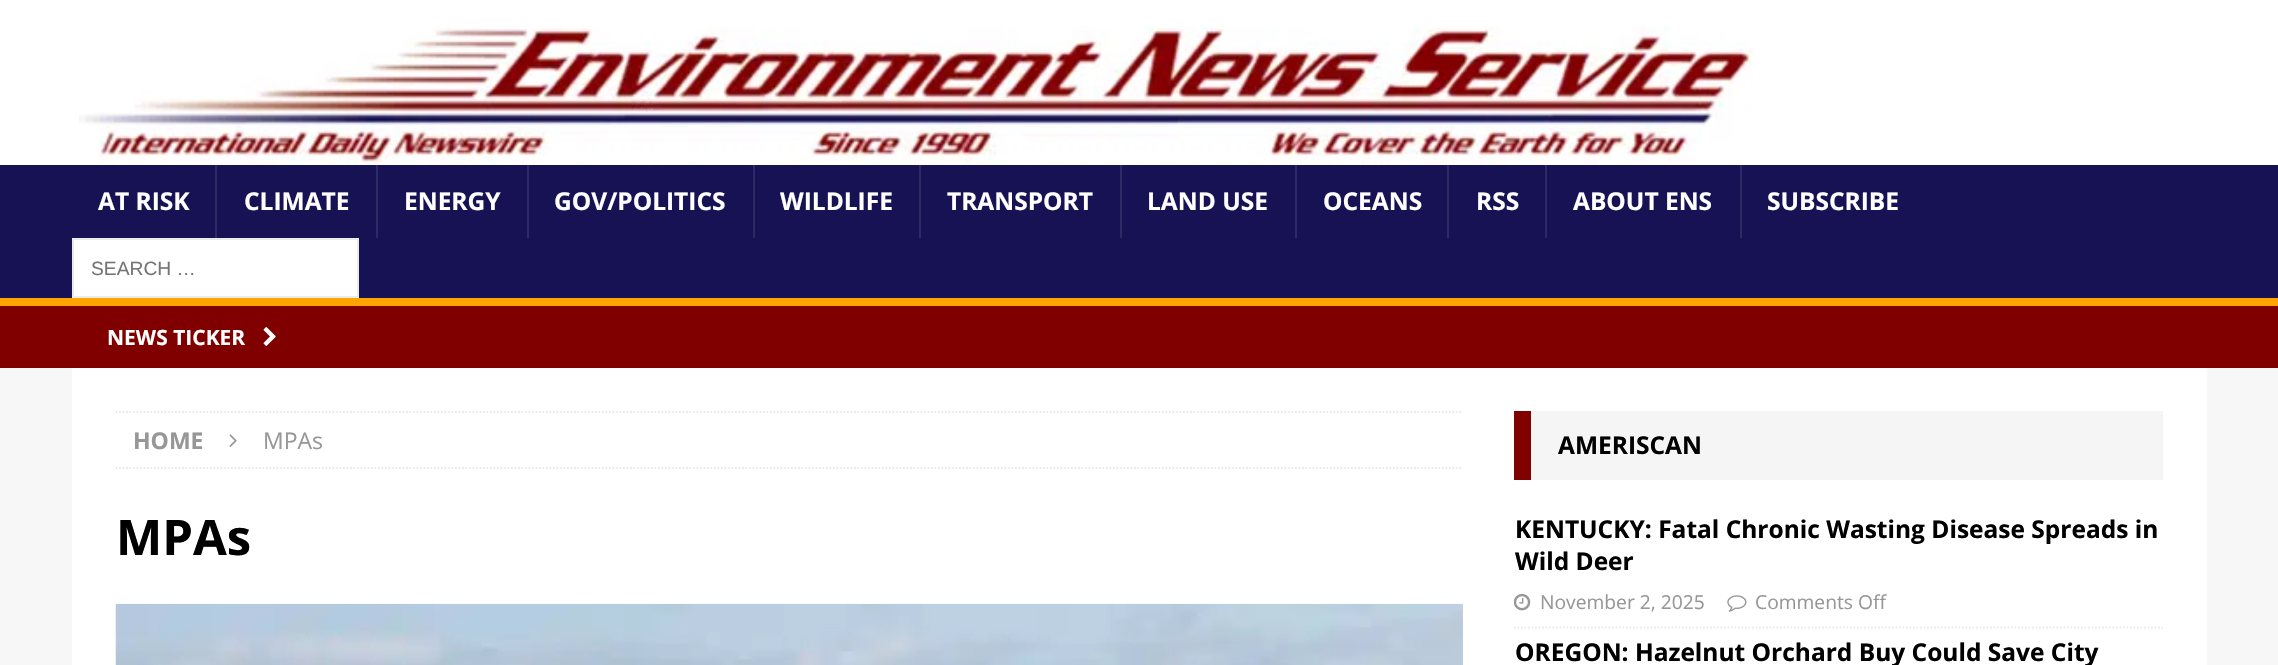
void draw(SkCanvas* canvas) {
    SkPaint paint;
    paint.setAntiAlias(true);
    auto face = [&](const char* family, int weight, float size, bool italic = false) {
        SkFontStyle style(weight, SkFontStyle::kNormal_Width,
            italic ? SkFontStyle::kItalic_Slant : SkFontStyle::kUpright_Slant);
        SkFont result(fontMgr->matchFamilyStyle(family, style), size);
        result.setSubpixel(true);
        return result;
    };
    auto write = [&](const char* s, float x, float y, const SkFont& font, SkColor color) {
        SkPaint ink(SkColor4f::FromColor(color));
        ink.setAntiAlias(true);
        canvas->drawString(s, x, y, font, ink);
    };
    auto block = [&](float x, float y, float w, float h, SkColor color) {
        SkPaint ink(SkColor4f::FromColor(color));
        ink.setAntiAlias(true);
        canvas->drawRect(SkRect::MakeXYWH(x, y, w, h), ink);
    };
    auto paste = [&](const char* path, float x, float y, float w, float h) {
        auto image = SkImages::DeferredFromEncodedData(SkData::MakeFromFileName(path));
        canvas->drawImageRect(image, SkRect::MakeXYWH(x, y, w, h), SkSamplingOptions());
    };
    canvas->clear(SkColorSetRGB(247, 247, 247));
    block(0, 0, 2278, 165, SK_ColorWHITE);
    paste("pic1.png", 79, 26, 1674, 139);
    block(0, 165, 2278, 133, SkColorSetRGB(23, 18, 84));
    auto kFont1 = face("Open Sans", 700, 24.5f);
    write("AT RISK", 98, 210, kFont1, SK_ColorWHITE);
    block(215, 165, 2, 73, SkColorSetRGB(46, 42, 101));
    write("CLIMATE", 244, 210, kFont1, SK_ColorWHITE);
    block(376, 165, 2, 73, SkColorSetRGB(46, 42, 101));
    write("ENERGY", 404, 210, kFont1, SK_ColorWHITE);
    block(527, 165, 2, 73, SkColorSetRGB(46, 42, 101));
    write("GOV/POLITICS", 554, 210, kFont1, SK_ColorWHITE);
    block(753, 165, 2, 73, SkColorSetRGB(46, 42, 101));
    write("WILDLIFE", 780, 210, kFont1, SK_ColorWHITE);
    block(919, 165, 2, 73, SkColorSetRGB(46, 42, 101));
    write("TRANSPORT", 947, 210, kFont1, SK_ColorWHITE);
    block(1120, 165, 2, 73, SkColorSetRGB(46, 42, 101));
    write("LAND USE", 1147, 210, kFont1, SK_ColorWHITE);
    block(1295, 165, 2, 73, SkColorSetRGB(46, 42, 101));
    write("OCEANS", 1323, 210, kFont1, SK_ColorWHITE);
    block(1447, 165, 2, 73, SkColorSetRGB(46, 42, 101));
    write("RSS", 1476, 210, kFont1, SK_ColorWHITE);
    block(1545, 165, 2, 73, SkColorSetRGB(46, 42, 101));
    write("ABOUT ENS", 1573, 210, kFont1, SK_ColorWHITE);
    block(1740, 165, 2, 73, SkColorSetRGB(46, 42, 101));
    write("SUBSCRIBE", 1767, 210, kFont1, SK_ColorWHITE);
    paint.setColor(SK_ColorWHITE);
    canvas->drawRect(SkRect::MakeXYWH(73, 239, 285, 58), paint);
    paint.setStyle(SkPaint::kStroke_Style);
    paint.setStrokeWidth(2);
    paint.setColor(SkColorSetRGB(235, 235, 235));
    canvas->drawRect(SkRect::MakeXYWH(73, 239, 285, 58), paint);
    auto kFont2 = face("Liberation Sans", 400, 19.25f);
    write("SEARCH …", 91, 275, kFont2, SkColorSetRGB(117, 117, 117));
    block(0, 306, 2278, 62, SkColorSetRGB(128, 0, 0));
    block(0, 298, 2278, 8, SkColorSetRGB(255, 165, 0));
    auto kFont3 = face("Open Sans", 700, 21);
    write("NEWS TICKER", 107, 345, kFont3, SK_ColorWHITE);
    paste("pic2.png", 263, 327, 13, 19);
    block(72, 368, 2135, 297, SK_ColorWHITE);
    paint.setStrokeWidth(1.8f);
    paint.setPathEffect(SkDashPathEffect::Make({{1.75f, 1.75f}}, 0));
    canvas->drawPath(SkPathBuilder().moveTo(115.5f, 412).lineTo(1463, 412).detach(), paint);
    paint.setPathEffect(nullptr);
    paint.setPathEffect(SkDashPathEffect::Make({{1.75f, 1.75f}}, 0));
    canvas->drawPath(SkPathBuilder().moveTo(115.5f, 468).lineTo(1463, 468).detach(), paint);
    paint.setPathEffect(nullptr);
    auto kFont4 = face("Open Sans", 700, 23);
    write("HOME", 133, 449, kFont4, SkColorSetRGB(151, 151, 151));
    paste("pic3.png", 229, 434, 8, 13);
    auto kFont5 = face("Open Sans", 400, 23);
    write("MPAs", 263, 449, kFont5, SkColorSetRGB(151, 151, 151));
    auto kFont6 = face("Open Sans", 700, 49);
    write("MPAs", 116, 555, kFont6, SK_ColorBLACK);
    paste("pic4.png", 115, 603, 1348, 62);
    block(1531, 411, 632, 69, SkColorSetRGB(245, 245, 245));
    block(1514, 411, 17, 69, SkColorSetRGB(128, 0, 0));
    write("AMERISCAN", 1558, 454, kFont1, SK_ColorBLACK);
    paint.setPathEffect(SkDashPathEffect::Make({{1.75f, 1.75f}}, 0));
    canvas->drawPath(SkPathBuilder().moveTo(1514, 627.5f).lineTo(2163, 627.5f).detach(), paint);
    paint.setPathEffect(nullptr);
    write("KENTUCKY: Fatal Chronic Wasting Disease Spreads in", 1515, 538, kFont1, SK_ColorBLACK);
    write("Wild Deer", 1515, 570, kFont1, SK_ColorBLACK);
    paste("pic5.png", 1514, 593, 17, 18);
    auto kFont7 = face("Open Sans", 400, 19.25f);
    write("November 2, 2025", 1540, 609, kFont7, SkColorSetRGB(151, 151, 151));
    paste("pic6.png", 1727, 595, 20, 17);
    write("Comments Off", 1755, 609, kFont7, SkColorSetRGB(151, 151, 151));
    write("OREGON: Hazelnut Orchard Buy Could Save City", 1515, 661, kFont1, SK_ColorBLACK);
}
